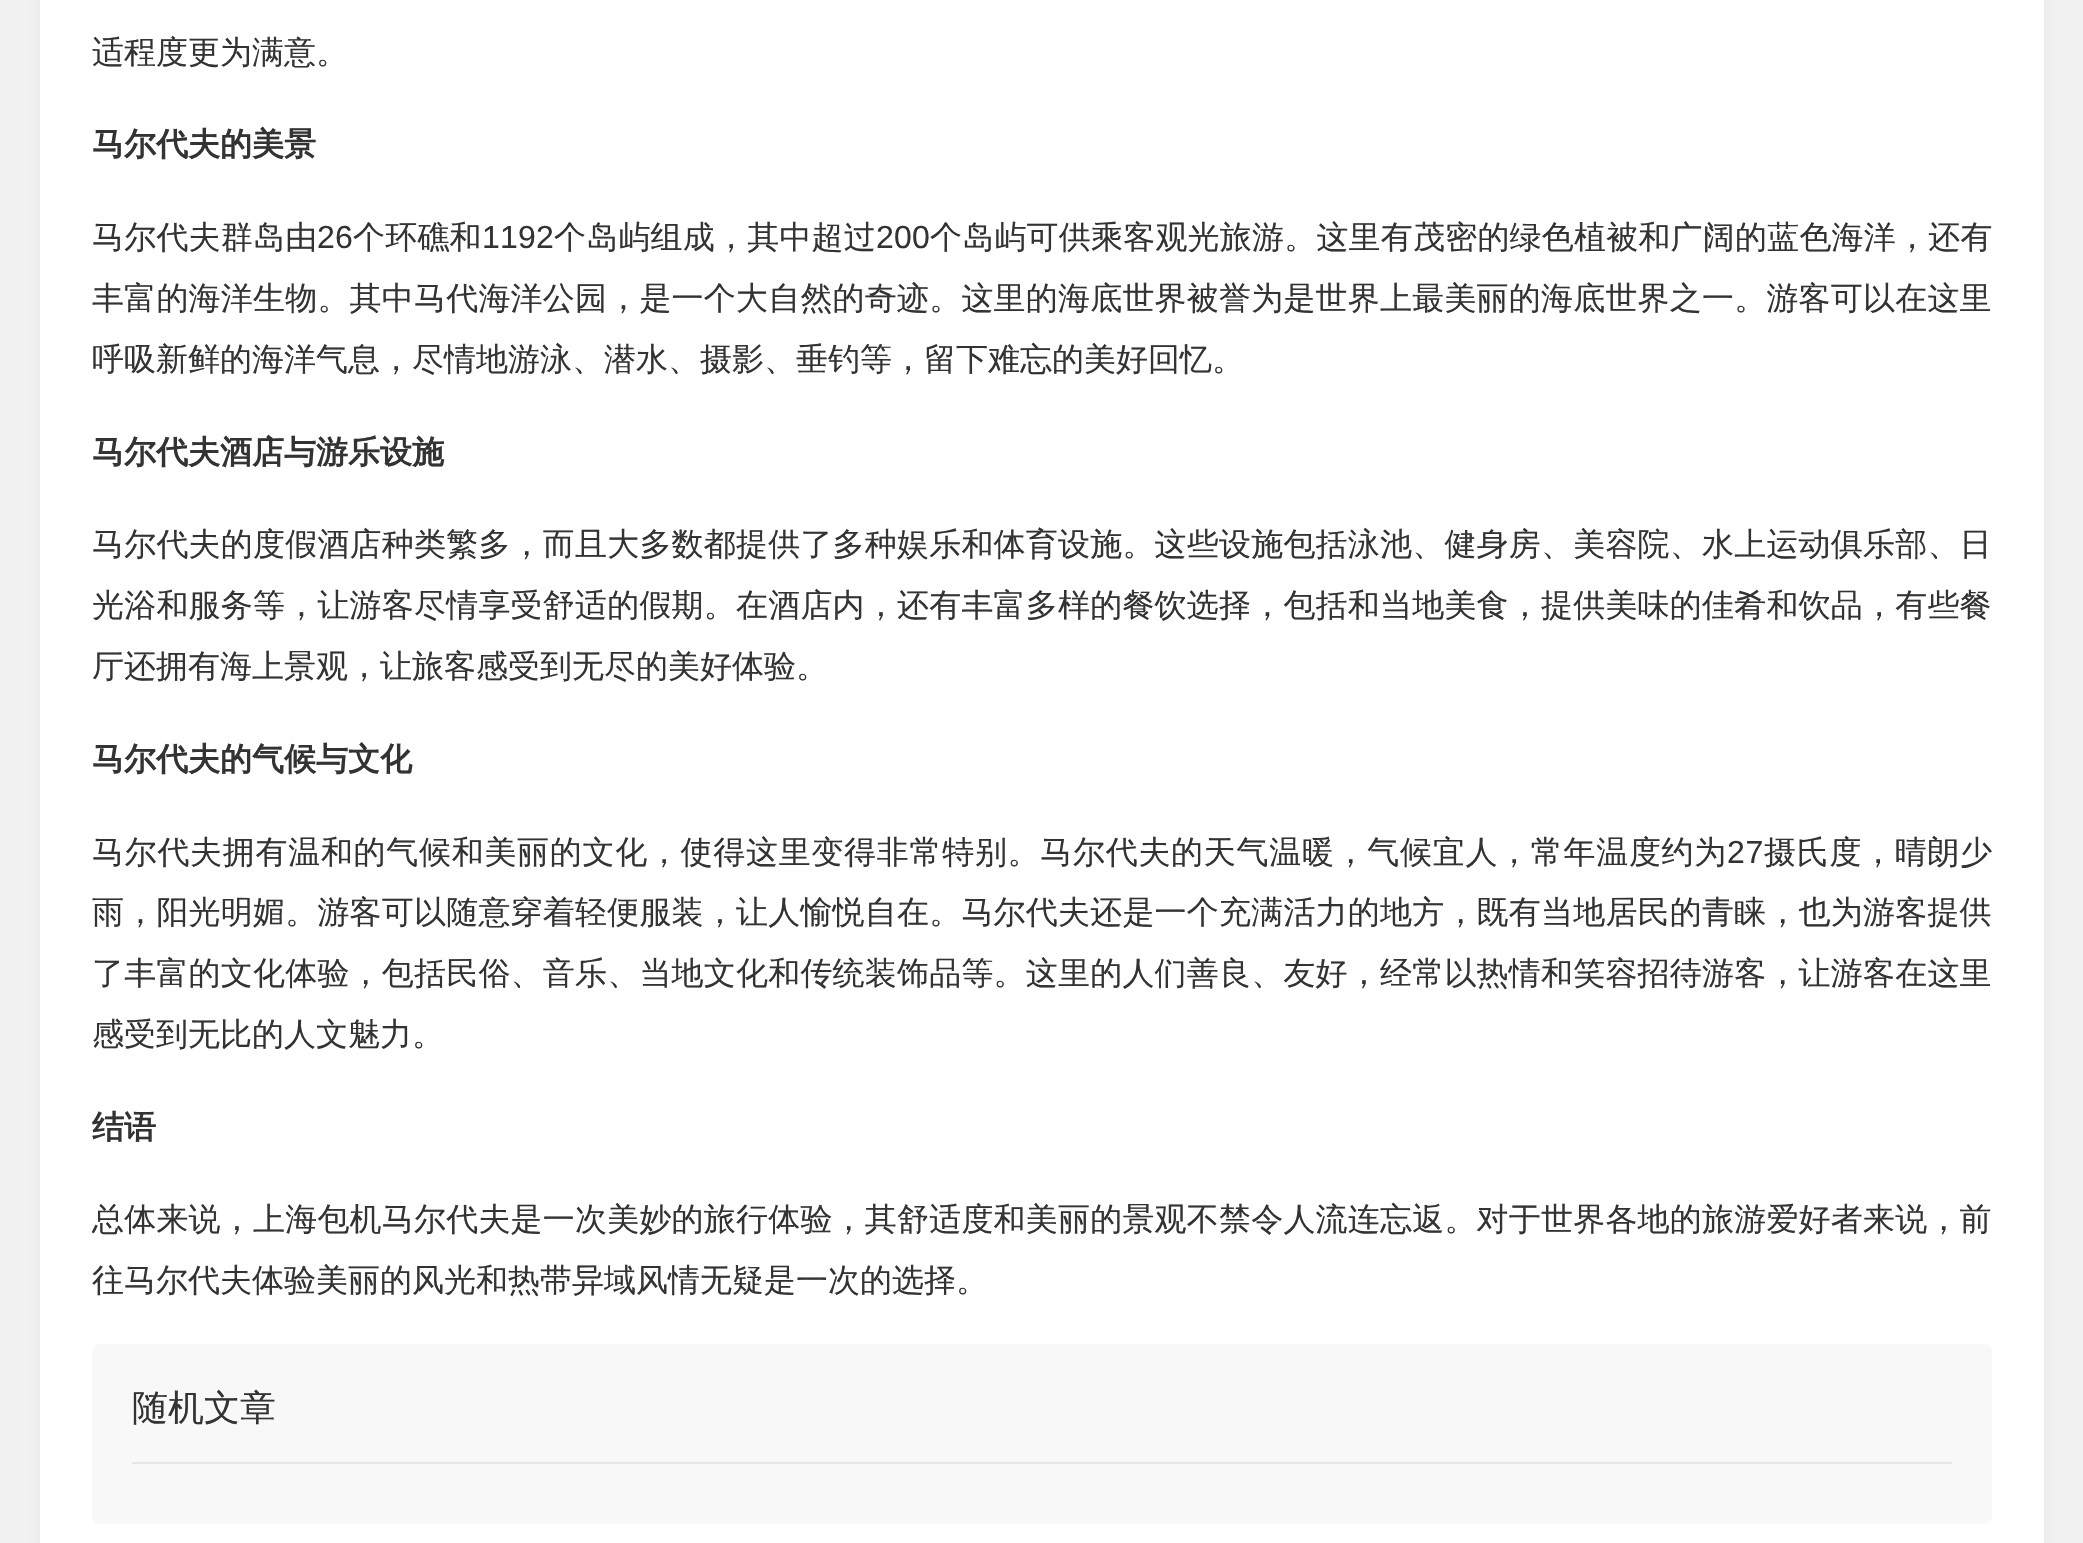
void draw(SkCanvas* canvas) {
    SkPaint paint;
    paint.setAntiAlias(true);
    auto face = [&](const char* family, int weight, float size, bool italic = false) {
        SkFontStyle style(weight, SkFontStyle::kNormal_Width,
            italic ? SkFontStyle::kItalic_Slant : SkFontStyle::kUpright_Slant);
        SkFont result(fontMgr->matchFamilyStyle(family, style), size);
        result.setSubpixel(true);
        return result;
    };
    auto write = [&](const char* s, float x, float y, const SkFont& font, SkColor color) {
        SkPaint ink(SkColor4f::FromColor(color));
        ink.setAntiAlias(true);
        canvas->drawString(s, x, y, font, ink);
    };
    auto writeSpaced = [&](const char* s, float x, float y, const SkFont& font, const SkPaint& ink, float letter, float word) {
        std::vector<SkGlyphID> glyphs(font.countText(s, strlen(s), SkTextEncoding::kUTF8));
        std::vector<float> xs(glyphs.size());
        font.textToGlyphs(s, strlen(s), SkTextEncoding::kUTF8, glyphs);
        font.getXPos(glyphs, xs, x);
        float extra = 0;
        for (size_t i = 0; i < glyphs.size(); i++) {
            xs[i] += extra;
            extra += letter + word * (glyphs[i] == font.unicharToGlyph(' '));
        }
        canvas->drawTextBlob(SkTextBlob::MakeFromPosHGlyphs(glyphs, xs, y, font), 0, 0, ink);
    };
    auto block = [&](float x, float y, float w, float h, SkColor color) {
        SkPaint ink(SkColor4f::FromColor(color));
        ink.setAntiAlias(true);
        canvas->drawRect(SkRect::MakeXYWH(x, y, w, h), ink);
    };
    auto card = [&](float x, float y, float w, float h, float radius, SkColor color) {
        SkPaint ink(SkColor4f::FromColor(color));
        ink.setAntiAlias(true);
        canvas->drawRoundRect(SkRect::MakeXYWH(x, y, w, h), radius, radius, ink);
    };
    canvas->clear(SkColorSetRGB(241, 241, 241));
    paint.setColor(SkColorSetARGB(13, 0, 0, 0));
    paint.setMaskFilter(SkMaskFilter::MakeBlur(kNormal_SkBlurStyle, 5));
    canvas->drawRoundRect(SkRect::MakeXYWH(40, -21, 2004, 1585), 6, 6, paint);
    paint.setMaskFilter(nullptr);
    block(40, 0, 2004, 1543, SK_ColorWHITE);
    auto kFont1 = face("WenQuanYi Zen Hei", 500, 32);
    write("适程度更为满意。", 92, 63, kFont1, SkColorSetRGB(51, 51, 51));
    auto kFont2 = face("WenQuanYi Zen Hei", 700, 32);
    write("马尔代夫的美景", 92, 155, kFont2, SkColorSetRGB(51, 51, 51));
    paint.setColor(SkColorSetRGB(51, 51, 51));
    writeSpaced("马尔代夫群岛由", 92, 248, kFont1, paint, 0.2f, 0);
    auto kFont3 = face("Liberation Sans", 400, 32);
    writeSpaced("26", 317, 248, kFont3, paint, 0.2f, 0);
    writeSpaced("个环礁和", 353, 248, kFont1, paint, 0.2f, 0);
    writeSpaced("1192", 482, 248, kFont3, paint, 0.2f, 0);
    writeSpaced("个岛屿组成，其中超过", 554, 248, kFont1, paint, 0.2f, 0);
    writeSpaced("200", 876, 248, kFont3, paint, 0.2f, 0);
    writeSpaced("个岛屿可供乘客观光旅游。这里有茂密的绿色植被和广阔的蓝色海洋，还有", 930, 248, kFont1, paint, 0.2f, 0);
    writeSpaced("丰富的海洋生物。其中马代海洋公园，是一个大自然的奇迹。这里的海底世界被誉为是世界上最美丽的海底世界之一。游客可以在这里", 92, 309, kFont1, paint, 0.2f, 0);
    write("呼吸新鲜的海洋气息，尽情地游泳、潜水、摄影、垂钓等，留下难忘的美好回忆。", 92, 370, kFont1, SkColorSetRGB(51, 51, 51));
    write("马尔代夫酒店与游乐设施", 92, 463, kFont2, SkColorSetRGB(51, 51, 51));
    writeSpaced("马尔代夫的度假酒店种类繁多，而且大多数都提供了多种娱乐和体育设施。这些设施包括泳池、健身房、美容院、水上运动俱乐部、日", 92, 555, kFont1, paint, 0.2f, 0);
    writeSpaced("光浴和服务等，让游客尽情享受舒适的假期。在酒店内，还有丰富多样的餐饮选择，包括和当地美食，提供美味的佳肴和饮品，有些餐", 92, 616, kFont1, paint, 0.2f, 0);
    write("厅还拥有海上景观，让旅客感受到无尽的美好体验。", 92, 677, kFont1, SkColorSetRGB(51, 51, 51));
    write("马尔代夫的气候与文化", 92, 770, kFont2, SkColorSetRGB(51, 51, 51));
    writeSpaced("马尔代夫拥有温和的气候和美丽的文化，使得这里变得非常特别。马尔代夫的天气温暖，气候宜人，常年温度约为", 92, 863, kFont1, paint, 0.7f, 0);
    writeSpaced("27", 1727, 863, kFont3, paint, 0.7f, 0);
    writeSpaced("摄氏度，晴朗少", 1764, 863, kFont1, paint, 0.7f, 0);
    writeSpaced("雨，阳光明媚。游客可以随意穿着轻便服装，让人愉悦自在。马尔代夫还是一个充满活力的地方，既有当地居民的青睐，也为游客提供", 92, 923, kFont1, paint, 0.2f, 0);
    writeSpaced("了丰富的文化体验，包括民俗、音乐、当地文化和传统装饰品等。这里的人们善良、友好，经常以热情和笑容招待游客，让游客在这里", 92, 984, kFont1, paint, 0.2f, 0);
    write("感受到无比的人文魅力。", 92, 1045, kFont1, SkColorSetRGB(51, 51, 51));
    write("结语", 92, 1138, kFont2, SkColorSetRGB(51, 51, 51));
    writeSpaced("总体来说，上海包机马尔代夫是一次美妙的旅行体验，其舒适度和美丽的景观不禁令人流连忘返。对于世界各地的旅游爱好者来说，前", 92, 1230, kFont1, paint, 0.2f, 0);
    write("往马尔代夫体验美丽的风光和热带异域风情无疑是一次的选择。", 92, 1291, kFont1, SkColorSetRGB(51, 51, 51));
    card(92, 1344, 1900, 180, 8, SkColorSetRGB(248, 248, 248));
    block(132, 1462, 1820, 2, SkColorSetRGB(230, 230, 230));
    auto kFont4 = face("WenQuanYi Zen Hei", 500, 36);
    write("随机文章", 132, 1420, kFont4, SkColorSetRGB(51, 51, 51));
}
